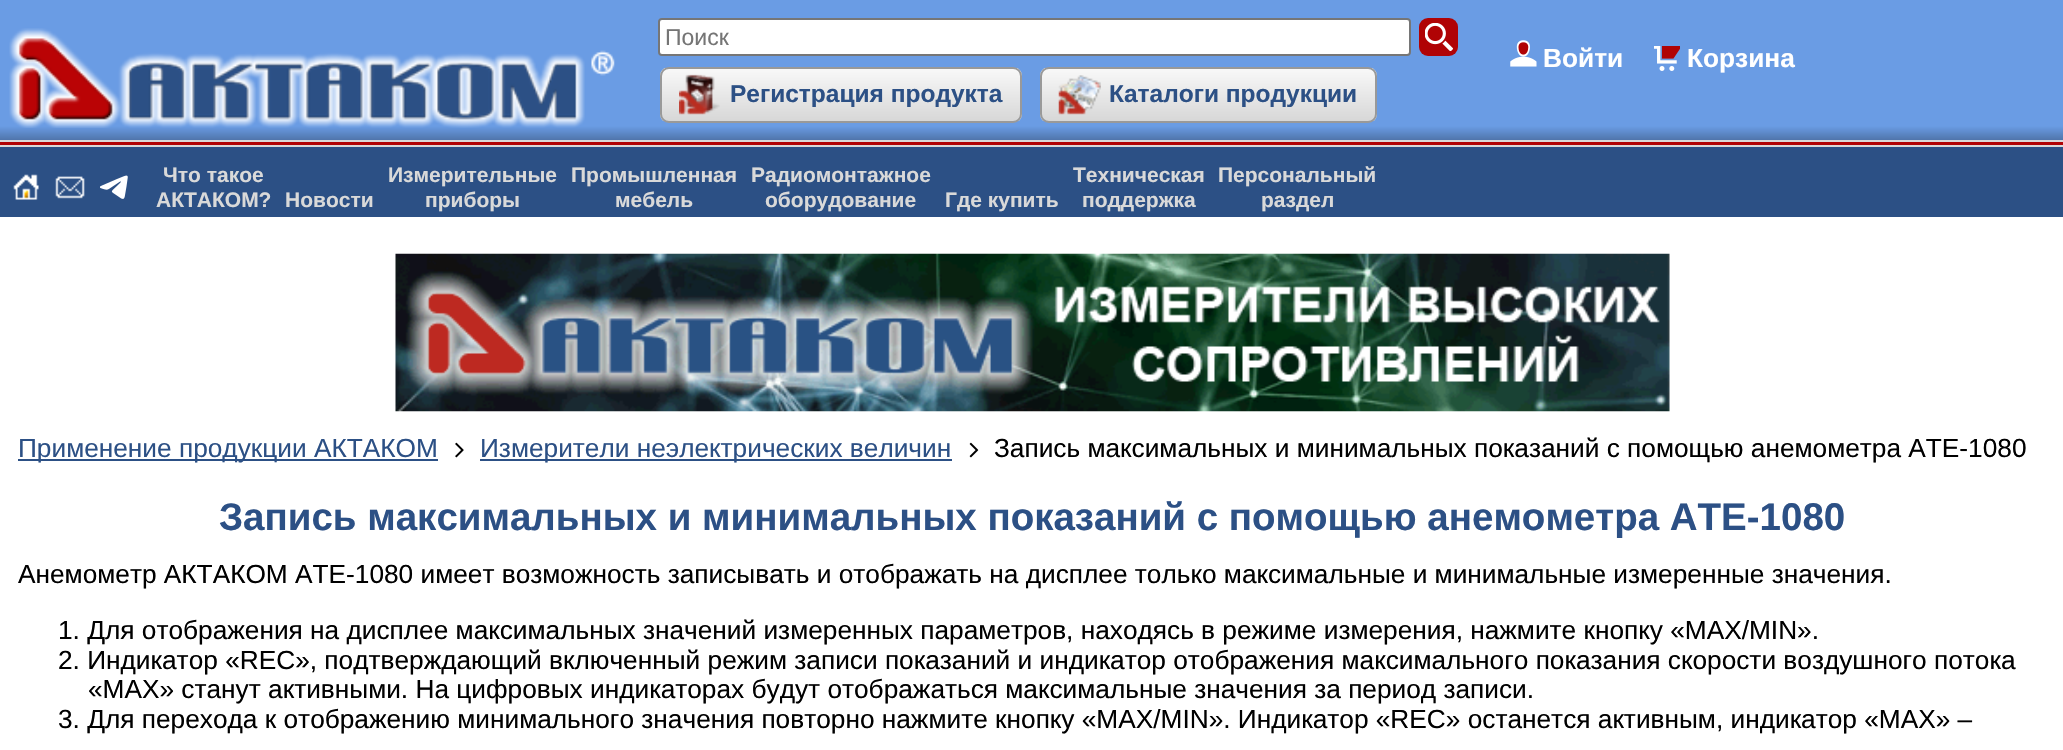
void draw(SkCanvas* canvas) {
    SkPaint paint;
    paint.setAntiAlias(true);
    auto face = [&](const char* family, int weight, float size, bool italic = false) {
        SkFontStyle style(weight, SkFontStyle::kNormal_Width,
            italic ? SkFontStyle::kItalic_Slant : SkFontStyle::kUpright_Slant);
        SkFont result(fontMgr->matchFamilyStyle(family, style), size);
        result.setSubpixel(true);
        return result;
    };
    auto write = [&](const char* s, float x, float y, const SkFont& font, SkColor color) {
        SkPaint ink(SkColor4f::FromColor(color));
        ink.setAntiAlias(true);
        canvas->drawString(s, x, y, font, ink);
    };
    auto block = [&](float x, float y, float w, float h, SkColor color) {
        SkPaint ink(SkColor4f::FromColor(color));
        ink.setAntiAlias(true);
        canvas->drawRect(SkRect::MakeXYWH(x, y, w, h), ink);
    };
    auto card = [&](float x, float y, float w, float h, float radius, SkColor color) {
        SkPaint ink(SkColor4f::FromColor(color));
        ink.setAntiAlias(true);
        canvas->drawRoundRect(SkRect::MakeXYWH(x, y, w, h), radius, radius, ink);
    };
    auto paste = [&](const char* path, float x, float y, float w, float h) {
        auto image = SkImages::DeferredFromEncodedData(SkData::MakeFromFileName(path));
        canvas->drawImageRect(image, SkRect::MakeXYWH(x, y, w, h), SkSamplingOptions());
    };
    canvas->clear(SK_ColorWHITE);
    {
        const SkColor colors[] = {SkColorSetRGB(106, 156, 228), SkColorSetRGB(80, 117, 171)};
        const float stops[] = {0.9f, 1};
        const SkPoint ends[] = {{1032, 0}, {1032, 140}};
        paint.setShader(SkGradientShader::MakeLinear(ends, colors, stops, 2, SkTileMode::kClamp));
        paint.setAlpha(255);
    }
    canvas->drawRect(SkRect::MakeXYWH(0, 0, 2063, 140), paint);
    paste("pic1.png", 9, 28, 606, 100);
    paint.setShader(nullptr);
    paint.setColor(SK_ColorWHITE);
    canvas->drawRoundRect(SkRect::MakeXYWH(659, 19, 751, 36), 3, 3, paint);
    paint.setStyle(SkPaint::kStroke_Style);
    paint.setStrokeWidth(2);
    paint.setColor(SkColorSetRGB(118, 118, 118));
    canvas->drawRoundRect(SkRect::MakeXYWH(659, 19, 751, 36), 3, 3, paint);
    auto kFont1 = face("Liberation Sans", 400, 23);
    write("Поиск", 665, 45, kFont1, SkColorSetRGB(117, 117, 117));
    card(1419, 18, 39, 38, 9, SkColorSetRGB(176, 3, 5));
    paste("pic2.png", 1425, 23, 28, 28);
    canvas->save();
    canvas->clipPath(SkPathBuilder().moveTo(669, 67).lineTo(1013, 67).cubicTo(1018, 67, 1022, 71, 1022, 76).lineTo(1022, 114).cubicTo(1022, 119, 1018, 123, 1013, 123).lineTo(669, 123).cubicTo(664, 123, 660, 119, 660, 114).lineTo(660, 76).cubicTo(660, 71, 664, 67, 669, 67).close().detach(), true);
    paint.setStyle(SkPaint::kFill_Style);
    {
        const SkColor colors[] = {SkColorSetRGB(249, 249, 249), SkColorSetRGB(215, 215, 215)};
        const float stops[] = {0, 1};
        const SkPoint ends[] = {{841, 68}, {841, 121}};
        paint.setShader(SkGradientShader::MakeLinear(ends, colors, stops, 2, SkTileMode::kClamp));
        paint.setAlpha(255);
    }
    canvas->drawRect(SkRect::MakeXYWH(660, 68, 362, 53), paint);
    canvas->restore();
    paint.setStyle(SkPaint::kStroke_Style);
    paint.setShader(nullptr);
    paint.setColor(SkColorSetRGB(153, 153, 153));
    canvas->drawRoundRect(SkRect::MakeXYWH(661, 68, 360, 54), 8, 8, paint);
    paste("pic3.png", 679, 74, 41, 41);
    auto kFont2 = face("Liberation Sans", 700, 24.5f);
    write("Регистрация продукта", 730, 102, kFont2, SkColorSetRGB(44, 80, 133));
    canvas->save();
    canvas->clipPath(SkPathBuilder().moveTo(1049, 67).lineTo(1368, 67).cubicTo(1373, 67, 1377, 71, 1377, 76).lineTo(1377, 114).cubicTo(1377, 119, 1373, 123, 1368, 123).lineTo(1049, 123).cubicTo(1044, 123, 1040, 119, 1040, 114).lineTo(1040, 76).cubicTo(1040, 71, 1044, 67, 1049, 67).close().detach(), true);
    paint.setStyle(SkPaint::kFill_Style);
    {
        const SkColor colors[] = {SkColorSetRGB(249, 249, 249), SkColorSetRGB(215, 215, 215)};
        const float stops[] = {0, 1};
        const SkPoint ends[] = {{1208, 68}, {1208, 121}};
        paint.setShader(SkGradientShader::MakeLinear(ends, colors, stops, 2, SkTileMode::kClamp));
        paint.setAlpha(255);
    }
    canvas->drawRect(SkRect::MakeXYWH(1040, 68, 337, 53), paint);
    canvas->restore();
    paint.setStyle(SkPaint::kStroke_Style);
    paint.setShader(nullptr);
    paint.setColor(SkColorSetRGB(153, 153, 153));
    canvas->drawRoundRect(SkRect::MakeXYWH(1041, 68, 335, 54), 8, 8, paint);
    paste("pic4.png", 1058, 75, 43, 40);
    write("Каталоги продукции", 1109, 102, kFont2, SkColorSetRGB(44, 80, 133));
    paste("pic5.png", 1510, 40, 27, 27);
    auto kFont3 = face("Liberation Sans", 700, 26.25f);
    write("Войти", 1543, 67, kFont3, SK_ColorWHITE);
    paste("pic6.png", 1654, 46, 26, 25);
    write("Корзина", 1687, 67, kFont3, SK_ColorWHITE);
    block(0, 140, 2063, 2, SkColorSetRGB(217, 217, 217));
    block(0, 142, 2063, 3, SkColorSetRGB(176, 3, 5));
    block(0, 145, 2063, 2, SkColorSetRGB(217, 217, 217));
    block(0, 147, 2063, 70, SkColorSetRGB(44, 80, 133));
    paste("pic7.png", 13, 174, 26, 26);
    paste("pic8.png", 55, 176, 30, 23);
    paste("pic9.png", 100, 175, 28, 24);
    auto kFont4 = face("Liberation Sans", 700, 21);
    write("Что такое", 163, 182, kFont4, SkColorSetRGB(217, 217, 217));
    write("АКТАКОМ?", 156, 207, kFont4, SkColorSetRGB(217, 217, 217));
    write("Новости", 285, 207, kFont4, SkColorSetRGB(217, 217, 217));
    write("Измерительные", 388, 182, kFont4, SkColorSetRGB(217, 217, 217));
    write("приборы", 425, 207, kFont4, SkColorSetRGB(217, 217, 217));
    write("Промышленная", 571, 182, kFont4, SkColorSetRGB(217, 217, 217));
    write("мебель", 615, 207, kFont4, SkColorSetRGB(217, 217, 217));
    write("Радиомонтажное", 751, 182, kFont4, SkColorSetRGB(217, 217, 217));
    write("оборудование", 765, 207, kFont4, SkColorSetRGB(217, 217, 217));
    write("Где купить", 945, 207, kFont4, SkColorSetRGB(217, 217, 217));
    write("Техническая", 1073, 182, kFont4, SkColorSetRGB(217, 217, 217));
    write("поддержка", 1082, 207, kFont4, SkColorSetRGB(217, 217, 217));
    write("Персональный", 1218, 182, kFont4, SkColorSetRGB(217, 217, 217));
    write("раздел", 1261, 207, kFont4, SkColorSetRGB(217, 217, 217));
    paste("pic10.png", 395, 253, 1275, 159);
    block(18, 459, 420, 2, SkColorSetRGB(44, 80, 133));
    auto kFont5 = face("Liberation Sans", 400, 26.25f);
    write("Применение продукции АКТАКОМ", 18, 457, kFont5, SkColorSetRGB(44, 80, 133));
    paste("pic11.png", 455, 442, 9, 16);
    block(480, 459, 472, 2, SkColorSetRGB(44, 80, 133));
    write("Измерители неэлектрических величин", 480, 457, kFont5, SkColorSetRGB(44, 80, 133));
    paste("pic12.png", 969, 442, 10, 16);
    write("Запись максимальных и минимальных показаний с помощью анемометра АТЕ-1080", 994, 457, kFont5, SK_ColorBLACK);
    auto kFont6 = face("Liberation Sans", 700, 38.5f);
    write("Запись максимальных и минимальных показаний с помощью анемометра АТЕ-1080", 219, 530, kFont6, SkColorSetRGB(44, 80, 133));
    write("Анемометр АКТАКОМ АТЕ-1080 имеет возможность записывать и отображать на дисплее только максимальные и минимальные измеренные значения.", 18, 583, kFont5, SK_ColorBLACK);
    write("1. Для отображения на дисплее максимальных значений измеренных параметров, находясь в режиме измерения, нажмите кнопку «MAX/MIN».", 58, 639, kFont5, SK_ColorBLACK);
    write("2. Индикатор «REC», подтверждающий включенный режим записи показаний и индикатор отображения максимального показания скорости воздушного потока", 58, 669, kFont5, SK_ColorBLACK);
    write("«MAX» станут активными. На цифровых индикаторах будут отображаться максимальные значения за период записи.", 88, 698, kFont5, SK_ColorBLACK);
    write("3. Для перехода к отображению минимального значения повторно нажмите кнопку «MAX/MIN». Индикатор «REC» останется активным, индикатор «MAX» –", 58, 728, kFont5, SK_ColorBLACK);
}
